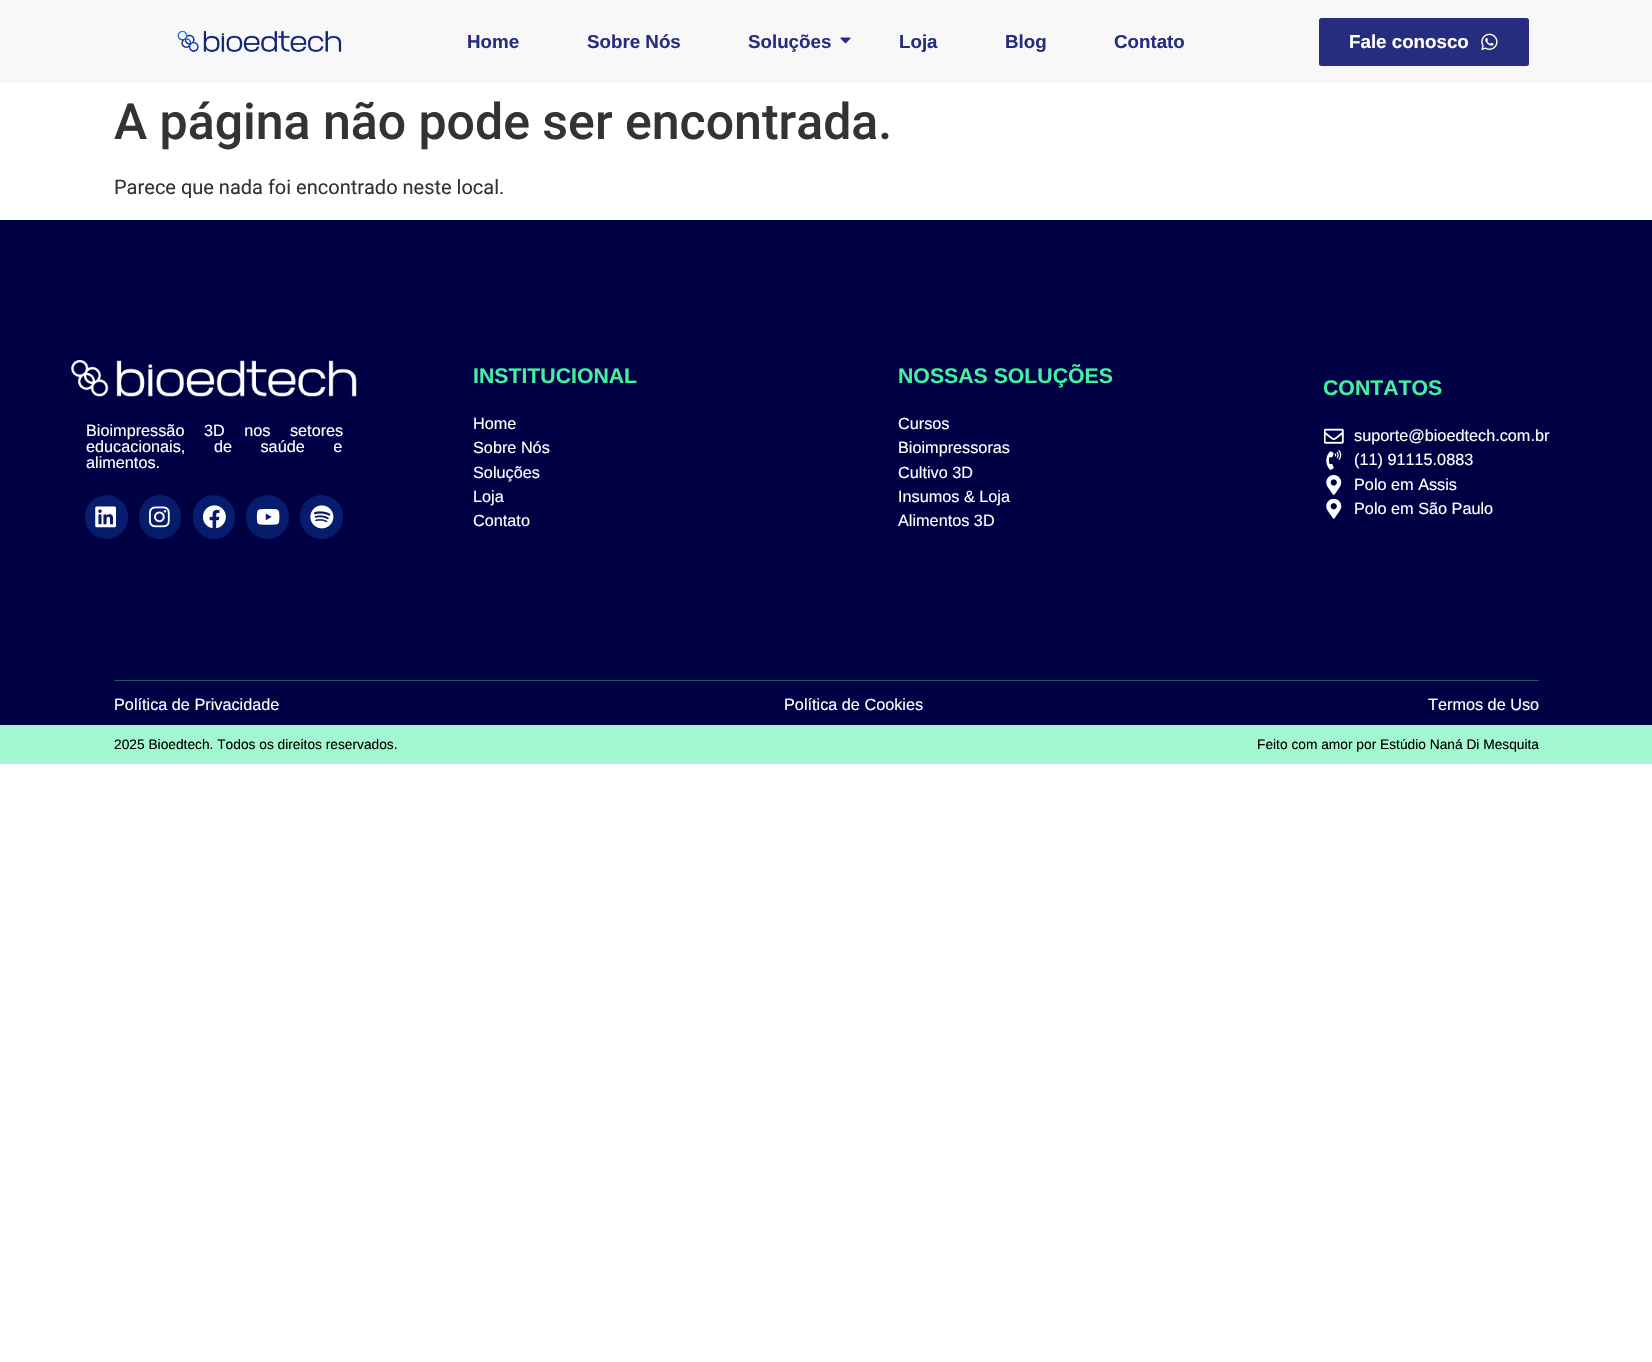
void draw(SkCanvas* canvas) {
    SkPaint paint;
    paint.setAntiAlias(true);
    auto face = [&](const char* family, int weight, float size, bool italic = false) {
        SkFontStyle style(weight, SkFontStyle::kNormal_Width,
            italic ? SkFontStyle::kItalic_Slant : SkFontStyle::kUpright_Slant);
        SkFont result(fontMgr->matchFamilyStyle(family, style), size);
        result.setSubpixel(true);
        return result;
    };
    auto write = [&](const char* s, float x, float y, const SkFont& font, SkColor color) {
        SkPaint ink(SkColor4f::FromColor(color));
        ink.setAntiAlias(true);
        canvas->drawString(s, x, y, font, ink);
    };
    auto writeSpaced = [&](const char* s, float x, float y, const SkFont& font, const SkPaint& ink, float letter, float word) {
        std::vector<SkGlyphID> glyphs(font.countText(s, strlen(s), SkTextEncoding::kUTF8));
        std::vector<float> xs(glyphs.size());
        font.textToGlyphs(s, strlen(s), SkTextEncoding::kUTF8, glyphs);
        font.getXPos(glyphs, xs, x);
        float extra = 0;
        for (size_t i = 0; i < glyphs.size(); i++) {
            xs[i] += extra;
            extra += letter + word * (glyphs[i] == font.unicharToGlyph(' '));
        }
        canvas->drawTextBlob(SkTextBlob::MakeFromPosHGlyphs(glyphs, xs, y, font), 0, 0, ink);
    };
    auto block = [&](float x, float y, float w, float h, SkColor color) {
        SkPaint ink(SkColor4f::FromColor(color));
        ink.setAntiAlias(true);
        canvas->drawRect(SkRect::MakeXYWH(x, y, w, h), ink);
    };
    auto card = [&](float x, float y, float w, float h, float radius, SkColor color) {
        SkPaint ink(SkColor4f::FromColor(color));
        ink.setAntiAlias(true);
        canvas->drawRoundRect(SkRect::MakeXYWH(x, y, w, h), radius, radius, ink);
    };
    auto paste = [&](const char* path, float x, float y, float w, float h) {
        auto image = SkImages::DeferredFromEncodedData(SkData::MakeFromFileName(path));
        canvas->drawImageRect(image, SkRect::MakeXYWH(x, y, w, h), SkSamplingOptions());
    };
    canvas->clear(SK_ColorWHITE);
    block(0, 0, 1652, 83, SkColorSetRGB(248, 248, 248));
    paste("pic1.png", 177, 30, 165, 22);
    auto kFont1 = face("Liberation Sans", 700, 18.75f);
    write("Home", 467, 48, kFont1, SkColorSetRGB(39, 45, 126));
    write("Sobre Nós", 587, 48, kFont1, SkColorSetRGB(39, 45, 126));
    write("Soluções", 748, 48, kFont1, SkColorSetRGB(39, 45, 126));
    paste("pic2.png", 840, 37, 11, 7);
    write("Loja", 899, 48, kFont1, SkColorSetRGB(39, 45, 126));
    write("Blog", 1005, 48, kFont1, SkColorSetRGB(39, 45, 126));
    write("Contato", 1114, 48, kFont1, SkColorSetRGB(39, 45, 126));
    card(1319, 18, 210, 48, 2.5f, SkColorSetRGB(39, 45, 126));
    write("Fale conosco", 1349, 48, kFont1, SK_ColorWHITE);
    paste("pic3.png", 1481, 33, 17, 17);
    auto kFont2 = face("Roboto", 500, 50);
    write("A página não pode ser encontrada.", 114, 139, kFont2, SkColorSetRGB(51, 51, 51));
    auto kFont3 = face("Roboto", 400, 20);
    write("Parece que nada foi encontrado neste local.", 114, 194, kFont3, SkColorSetRGB(51, 51, 51));
    block(0, 220, 1652, 505, SkColorSetRGB(0, 0, 69));
    paste("pic4.png", 71, 360, 286, 37);
    auto kFont4 = face("Liberation Sans", 400, 16.25f);
    paint.setColor(SK_ColorWHITE);
    writeSpaced("Bioimpressão 3D nos setores", 86, 436, kFont4, paint, 0, 15);
    writeSpaced("educacionais, de saúde e", 86, 452, kFont4, paint, 0, 24);
    write("alimentos.", 86, 468, kFont4, SK_ColorWHITE);
    card(85, 495, 43, 44, 21.5f, SkColorSetRGB(7, 28, 108));
    paste("pic5.png", 95, 506, 21, 22);
    card(139, 495, 42, 44, 21, SkColorSetRGB(7, 28, 108));
    paste("pic6.png", 149, 506, 21, 22);
    card(193, 495, 42, 44, 21, SkColorSetRGB(7, 28, 108));
    paste("pic7.png", 203, 505, 23, 24);
    card(246, 495, 43, 44, 21.5f, SkColorSetRGB(7, 28, 108));
    paste("pic8.png", 256, 508, 24, 17);
    card(300, 495, 43, 44, 21.5f, SkColorSetRGB(7, 28, 108));
    paste("pic9.png", 310, 505, 24, 24);
    auto kFont5 = face("Liberation Sans", 700, 21.25f);
    write("INSTITUCIONAL", 473, 383, kFont5, SkColorSetRGB(68, 239, 161));
    write("Home", 473, 429, kFont4, SK_ColorWHITE);
    write("Sobre Nós", 473, 453, kFont4, SK_ColorWHITE);
    write("Soluções", 473, 478, kFont4, SK_ColorWHITE);
    write("Loja", 473, 502, kFont4, SK_ColorWHITE);
    write("Contato", 473, 526, kFont4, SK_ColorWHITE);
    write("NOSSAS SOLUÇÕES", 898, 383, kFont5, SkColorSetRGB(68, 239, 161));
    write("Cursos", 898, 429, kFont4, SK_ColorWHITE);
    write("Bioimpressoras", 898, 453, kFont4, SK_ColorWHITE);
    write("Cultivo 3D", 898, 478, kFont4, SK_ColorWHITE);
    write("Insumos & Loja", 898, 502, kFont4, SK_ColorWHITE);
    write("Alimentos 3D", 898, 526, kFont4, SK_ColorWHITE);
    write("CONTATOS", 1323, 395, kFont5, SkColorSetRGB(68, 239, 161));
    paste("pic10.png", 1324, 428, 20, 16);
    write("suporte@bioedtech.com.br", 1354, 441, kFont4, SK_ColorWHITE);
    paste("pic11.png", 1326, 450, 16, 20);
    write("(11) 91115.0883", 1354, 465, kFont4, SK_ColorWHITE);
    paste("pic12.png", 1326, 475, 16, 20);
    write("Polo em Assis", 1354, 490, kFont4, SK_ColorWHITE);
    paste("pic13.png", 1326, 499, 16, 20);
    write("Polo em São Paulo", 1354, 514, kFont4, SK_ColorWHITE);
    block(114, 680, 1425, 1, SkColorSetRGB(24, 86, 102));
    write("Política de Privacidade", 114, 710, kFont4, SK_ColorWHITE);
    write("Política de Cookies", 784, 710, kFont4, SK_ColorWHITE);
    write("Termos de Uso", 1428, 710, kFont4, SK_ColorWHITE);
    block(0, 725, 1652, 39, SkColorSetRGB(162, 247, 208));
    auto kFont6 = face("Liberation Sans", 400, 13.75f);
    write("2025 Bioedtech. Todos os direitos reservados.", 114, 749, kFont6, SK_ColorBLACK);
    write("Feito com amor por Estúdio Naná Di Mesquita", 1257, 749, kFont6, SK_ColorBLACK);
}
